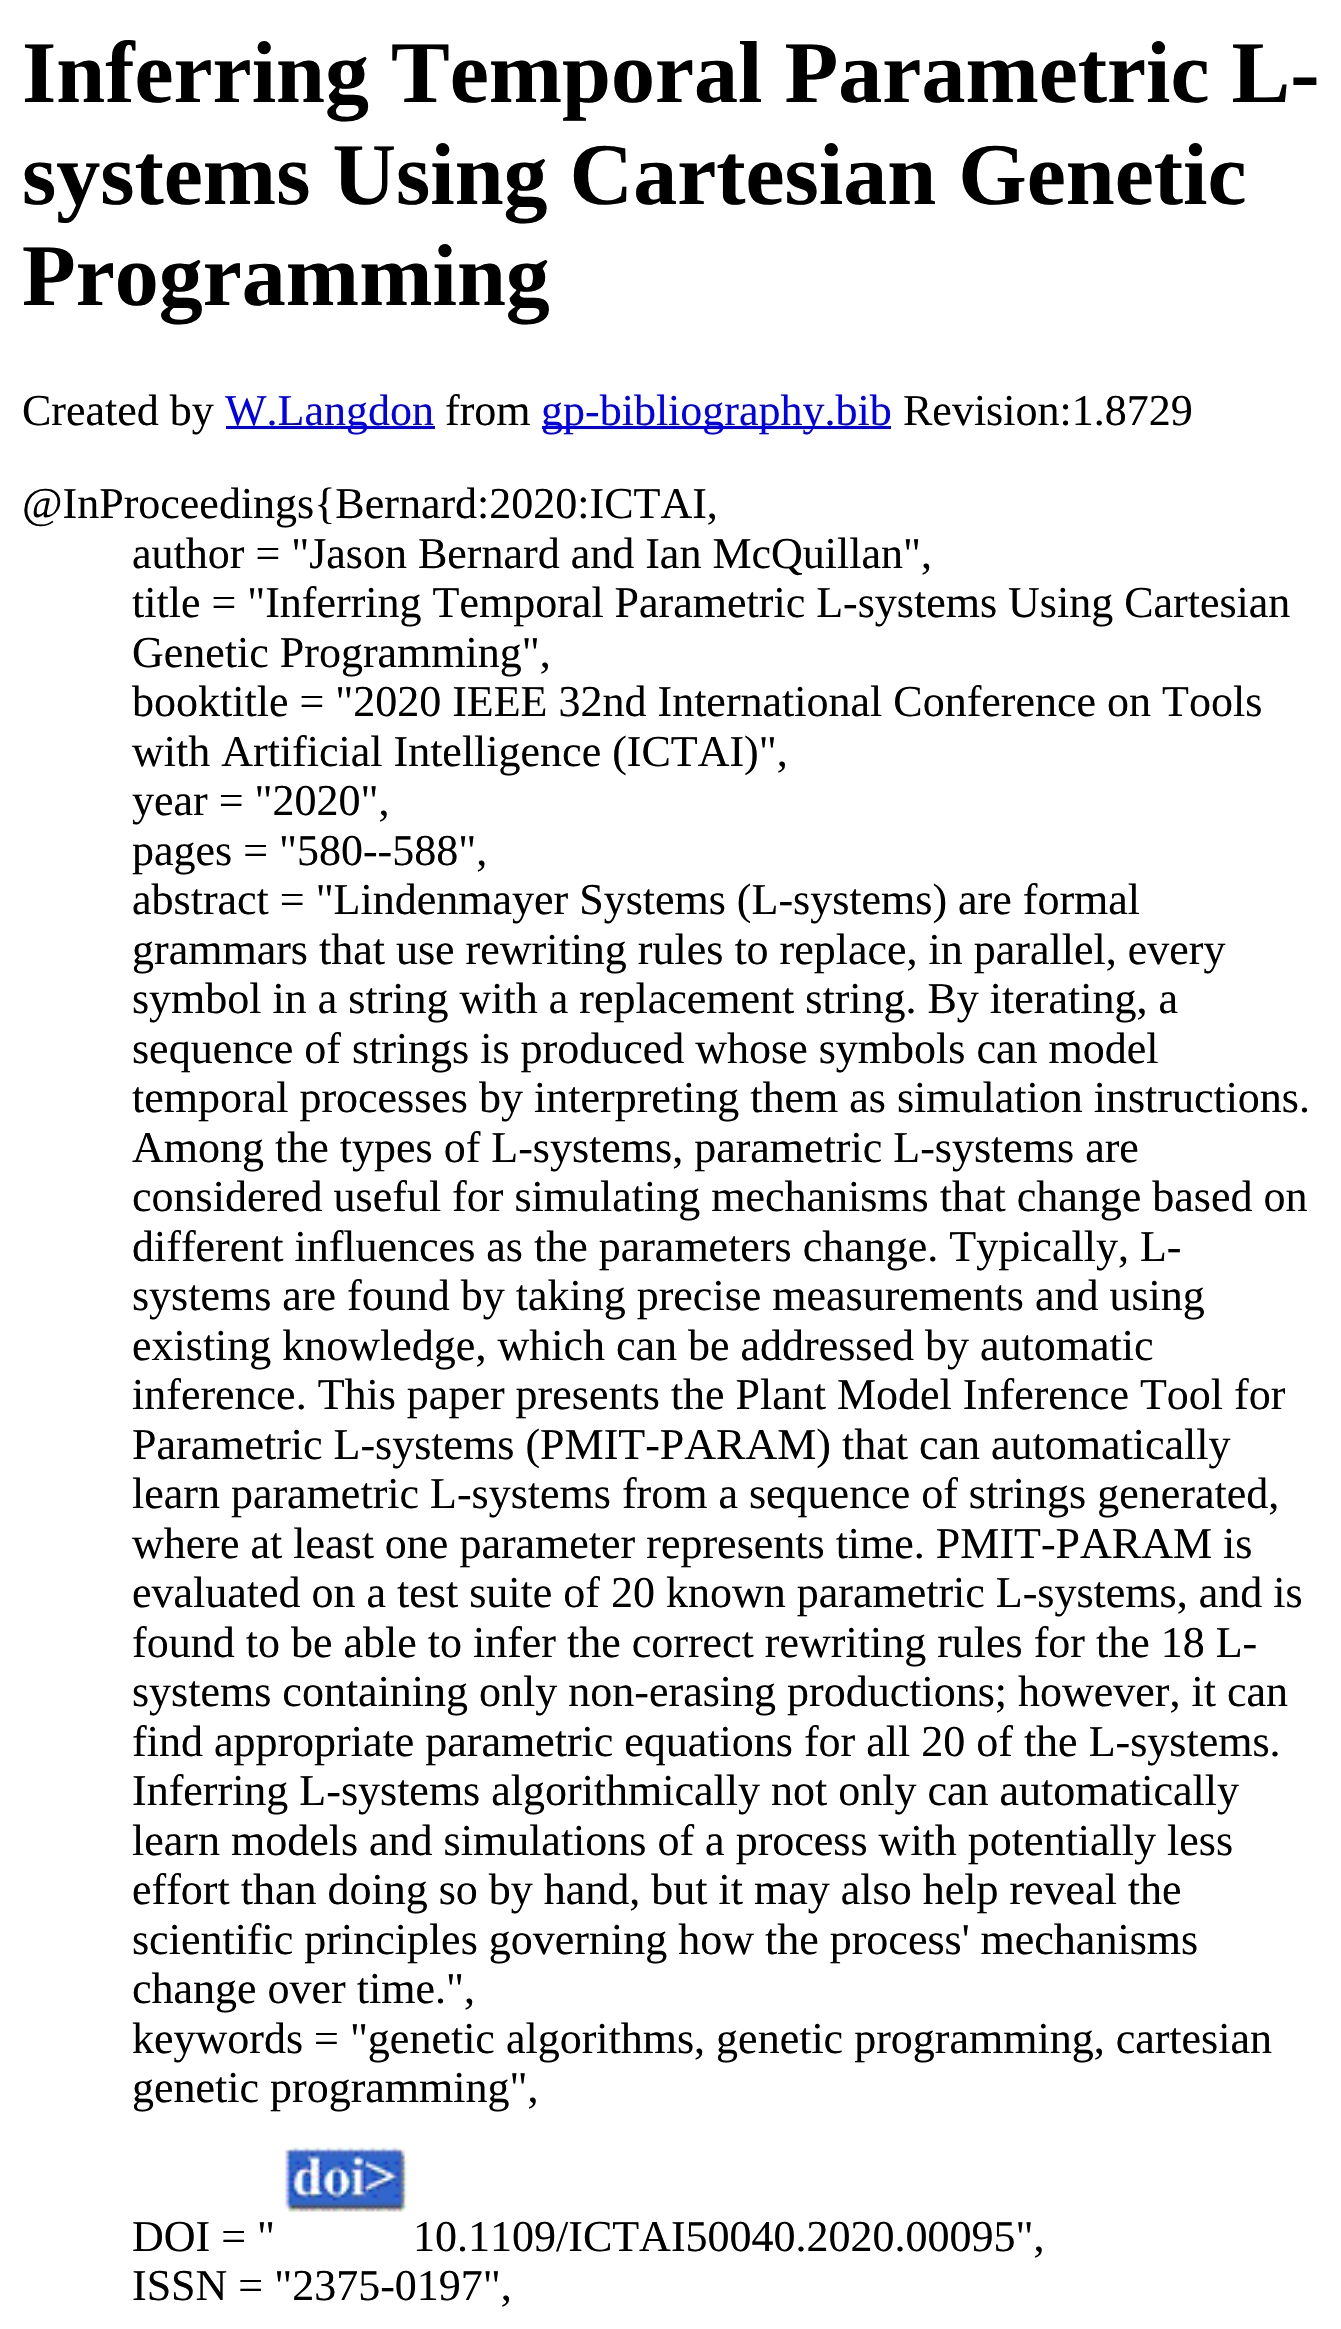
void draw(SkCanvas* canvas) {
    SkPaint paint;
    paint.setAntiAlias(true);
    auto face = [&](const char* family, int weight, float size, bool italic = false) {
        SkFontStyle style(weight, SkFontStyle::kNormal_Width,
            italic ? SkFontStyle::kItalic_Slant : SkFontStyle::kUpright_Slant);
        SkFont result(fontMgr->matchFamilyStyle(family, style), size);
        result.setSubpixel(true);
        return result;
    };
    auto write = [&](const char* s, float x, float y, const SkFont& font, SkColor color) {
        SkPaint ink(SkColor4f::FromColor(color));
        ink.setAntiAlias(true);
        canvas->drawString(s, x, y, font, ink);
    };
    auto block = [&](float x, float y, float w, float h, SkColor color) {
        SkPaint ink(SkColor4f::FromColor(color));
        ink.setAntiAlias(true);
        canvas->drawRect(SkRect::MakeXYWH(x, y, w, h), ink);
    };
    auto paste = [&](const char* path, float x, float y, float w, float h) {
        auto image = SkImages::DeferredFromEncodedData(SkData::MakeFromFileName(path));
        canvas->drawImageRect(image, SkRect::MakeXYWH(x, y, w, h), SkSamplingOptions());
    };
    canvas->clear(SK_ColorWHITE);
    auto kFont1 = face("Liberation Serif", 700, 88);
    write("Inferring Temporal Parametric L-", 22, 102, kFont1, SK_ColorBLACK);
    write("systems Using Cartesian Genetic", 22, 204, kFont1, SK_ColorBLACK);
    write("Programming", 22, 305, kFont1, SK_ColorBLACK);
    auto kFont2 = face("Liberation Serif", 400, 44);
    write("Created by", 22, 425, kFont2, SK_ColorBLACK);
    block(226, 426, 209, 3, SkColorSetRGB(0, 0, 238));
    write("W.Langdon", 225, 425, kFont2, SkColorSetRGB(0, 0, 238));
    write("from", 445, 425, kFont2, SK_ColorBLACK);
    block(542, 426, 349, 3, SkColorSetRGB(0, 0, 238));
    write("gp-bibliography.bib", 541, 425, kFont2, SkColorSetRGB(0, 0, 238));
    write("Revision:1.8729", 903, 425, kFont2, SK_ColorBLACK);
    write("@InProceedings{Bernard:2020:ICTAI,", 22, 518, kFont2, SK_ColorBLACK);
    write("author = \"Jason Bernard and Ian McQuillan\",", 132, 568, kFont2, SK_ColorBLACK);
    write("title = \"Inferring Temporal Parametric L-systems Using Cartesian", 132, 617, kFont2, SK_ColorBLACK);
    write("Genetic Programming\",", 132, 667, kFont2, SK_ColorBLACK);
    write("booktitle = \"2020 IEEE 32nd International Conference on Tools", 132, 716, kFont2, SK_ColorBLACK);
    write("with Artificial Intelligence (ICTAI)\",", 132, 766, kFont2, SK_ColorBLACK);
    write("year = \"2020\",", 132, 815, kFont2, SK_ColorBLACK);
    write("pages = \"580--588\",", 132, 865, kFont2, SK_ColorBLACK);
    write("abstract = \"Lindenmayer Systems (L-systems) are formal", 132, 914, kFont2, SK_ColorBLACK);
    write("grammars that use rewriting rules to replace, in parallel, every", 132, 964, kFont2, SK_ColorBLACK);
    write("symbol in a string with a replacement string. By iterating, a", 132, 1013, kFont2, SK_ColorBLACK);
    write("sequence of strings is produced whose symbols can model", 132, 1063, kFont2, SK_ColorBLACK);
    write("temporal processes by interpreting them as simulation instructions.", 132, 1112, kFont2, SK_ColorBLACK);
    write("Among the types of L-systems, parametric L-systems are", 132, 1162, kFont2, SK_ColorBLACK);
    write("considered useful for simulating mechanisms that change based on", 132, 1211, kFont2, SK_ColorBLACK);
    write("different influences as the parameters change. Typically, L-", 132, 1261, kFont2, SK_ColorBLACK);
    write("systems are found by taking precise measurements and using", 132, 1310, kFont2, SK_ColorBLACK);
    write("existing knowledge, which can be addressed by automatic", 132, 1360, kFont2, SK_ColorBLACK);
    write("inference. This paper presents the Plant Model Inference Tool for", 132, 1409, kFont2, SK_ColorBLACK);
    write("Parametric L-systems (PMIT-PARAM) that can automatically", 132, 1459, kFont2, SK_ColorBLACK);
    write("learn parametric L-systems from a sequence of strings generated,", 132, 1508, kFont2, SK_ColorBLACK);
    write("where at least one parameter represents time. PMIT-PARAM is", 132, 1558, kFont2, SK_ColorBLACK);
    write("evaluated on a test suite of 20 known parametric L-systems, and is", 132, 1607, kFont2, SK_ColorBLACK);
    write("found to be able to infer the correct rewriting rules for the 18 L-", 132, 1657, kFont2, SK_ColorBLACK);
    write("systems containing only non-erasing productions; however, it can", 132, 1706, kFont2, SK_ColorBLACK);
    write("find appropriate parametric equations for all 20 of the L-systems.", 132, 1756, kFont2, SK_ColorBLACK);
    write("Inferring L-systems algorithmically not only can automatically", 132, 1805, kFont2, SK_ColorBLACK);
    write("learn models and simulations of a process with potentially less", 132, 1855, kFont2, SK_ColorBLACK);
    write("effort than doing so by hand, but it may also help reveal the", 132, 1904, kFont2, SK_ColorBLACK);
    write("scientific principles governing how the process' mechanisms", 132, 1954, kFont2, SK_ColorBLACK);
    write("change over time.\",", 132, 2003, kFont2, SK_ColorBLACK);
    write("keywords = \"genetic algorithms, genetic programming, cartesian", 132, 2053, kFont2, SK_ColorBLACK);
    write("genetic programming\",", 132, 2102, kFont2, SK_ColorBLACK);
    paste("pic1.png", 285, 2147, 123, 65);
    write("DOI = \"", 132, 2251, kFont2, SK_ColorBLACK);
    write("10.1109/ICTAI50040.2020.00095\",", 413, 2251, kFont2, SK_ColorBLACK);
    write("ISSN = \"2375-0197\",", 132, 2300, kFont2, SK_ColorBLACK);
}
